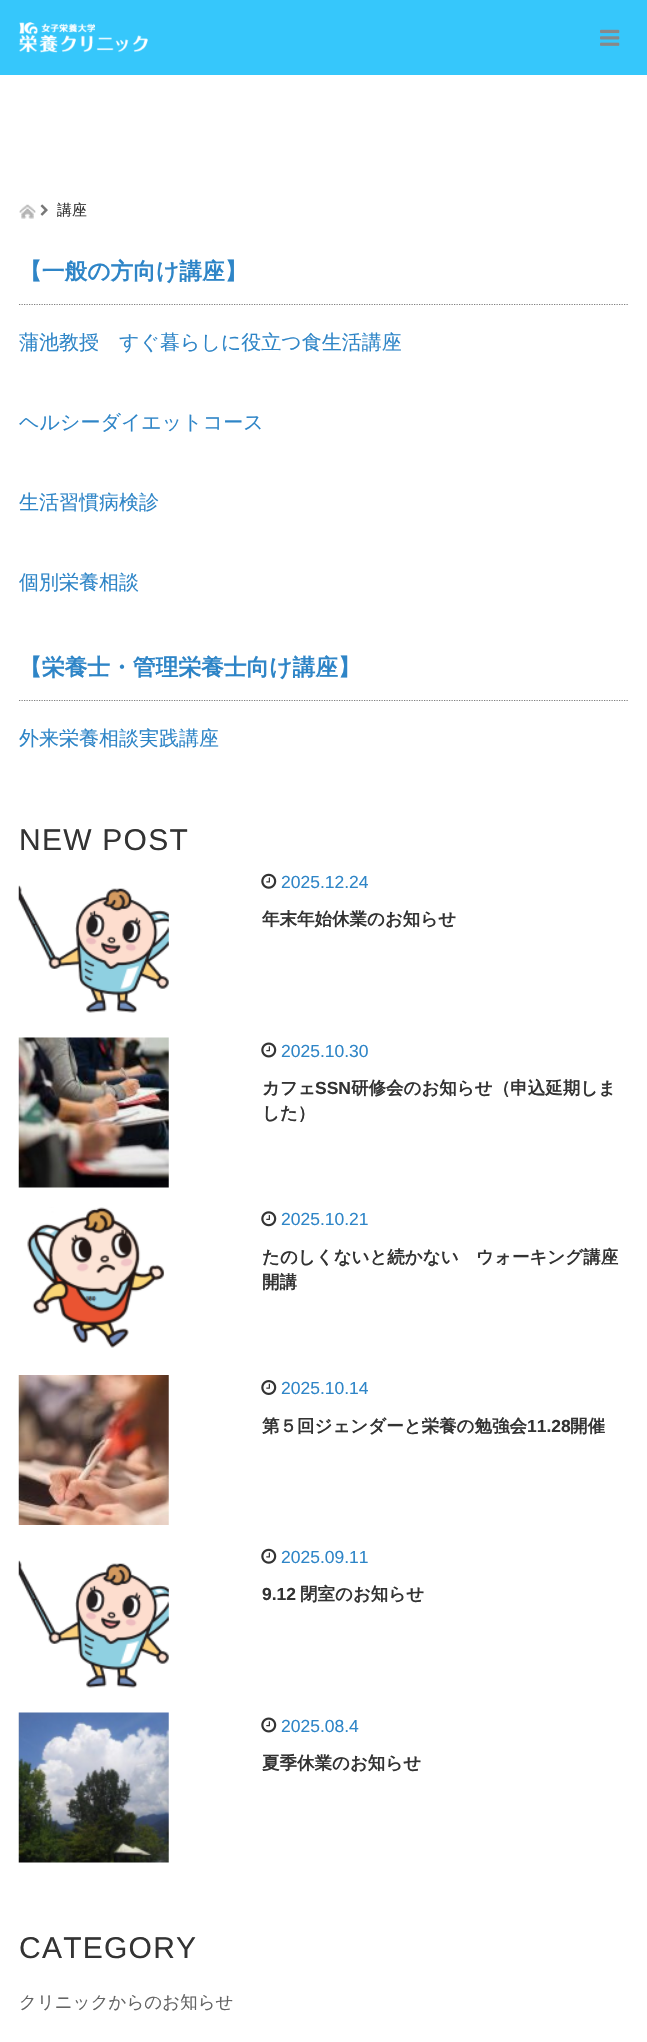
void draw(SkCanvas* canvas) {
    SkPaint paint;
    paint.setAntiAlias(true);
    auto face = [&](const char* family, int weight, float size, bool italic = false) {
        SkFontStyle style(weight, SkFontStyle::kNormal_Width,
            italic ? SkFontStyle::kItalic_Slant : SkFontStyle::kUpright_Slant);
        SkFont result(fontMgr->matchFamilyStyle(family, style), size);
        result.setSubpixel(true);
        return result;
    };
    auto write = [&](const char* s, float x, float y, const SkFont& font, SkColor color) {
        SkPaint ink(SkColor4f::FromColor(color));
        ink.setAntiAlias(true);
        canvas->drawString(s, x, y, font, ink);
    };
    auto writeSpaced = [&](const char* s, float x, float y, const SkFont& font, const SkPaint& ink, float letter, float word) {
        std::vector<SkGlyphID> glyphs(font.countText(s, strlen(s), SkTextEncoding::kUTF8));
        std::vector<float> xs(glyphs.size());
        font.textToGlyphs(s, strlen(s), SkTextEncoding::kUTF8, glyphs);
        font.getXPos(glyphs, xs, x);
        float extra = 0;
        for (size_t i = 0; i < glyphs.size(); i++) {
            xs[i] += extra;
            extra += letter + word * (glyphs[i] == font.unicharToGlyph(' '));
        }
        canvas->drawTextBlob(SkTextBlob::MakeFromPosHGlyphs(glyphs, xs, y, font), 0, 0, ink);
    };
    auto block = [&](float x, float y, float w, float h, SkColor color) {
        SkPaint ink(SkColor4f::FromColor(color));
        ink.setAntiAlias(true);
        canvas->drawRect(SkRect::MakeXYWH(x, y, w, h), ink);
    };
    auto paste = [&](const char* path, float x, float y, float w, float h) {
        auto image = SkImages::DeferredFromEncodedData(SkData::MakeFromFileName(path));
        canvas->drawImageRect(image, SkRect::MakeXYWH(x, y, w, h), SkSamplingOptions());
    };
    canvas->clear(SK_ColorWHITE);
    block(0, 0, 647, 75, SkColorSetRGB(54, 199, 251));
    paste("pic1.png", 19, 22, 129, 31);
    paste("pic2.png", 600, 29, 20, 17);
    paste("pic3.png", 19, 204, 17, 15);
    paste("pic4.png", 40, 204, 8, 12);
    auto kFont1 = face("WenQuanYi Zen Hei", 500, 15);
    write("講座", 57, 215, kFont1, SkColorSetRGB(51, 51, 51));
    paint.setStyle(SkPaint::kStroke_Style);
    paint.setStrokeWidth(1.2f);
    paint.setColor(SkColorSetRGB(128, 128, 128));
    paint.setPathEffect(SkDashPathEffect::Make({{1.25f, 1.25f}}, 0));
    canvas->drawPath(SkPathBuilder().moveTo(19, 304.5f).lineTo(629, 304.5f).detach(), paint);
    paint.setPathEffect(nullptr);
    auto kFont2 = face("WenQuanYi Zen Hei", 700, 22.75f);
    write("【一般の方向け講座】", 19, 279, kFont2, SkColorSetRGB(46, 133, 199));
    auto kFont3 = face("WenQuanYi Zen Hei", 500, 20);
    write("蒲池教授　すぐ暮らしに役立つ食生活講座", 19, 349, kFont3, SkColorSetRGB(46, 133, 199));
    write("ヘルシーダイエットコース", 19, 429, kFont3, SkColorSetRGB(46, 133, 199));
    write("生活習慣病検診", 19, 509, kFont3, SkColorSetRGB(46, 133, 199));
    write("個別栄養相談", 19, 589, kFont3, SkColorSetRGB(46, 133, 199));
    paint.setPathEffect(SkDashPathEffect::Make({{1.25f, 1.25f}}, 0));
    canvas->drawPath(SkPathBuilder().moveTo(19, 700.5f).lineTo(629, 700.5f).detach(), paint);
    paint.setPathEffect(nullptr);
    write("【栄養士・管理栄養士向け講座】", 19, 675, kFont2, SkColorSetRGB(46, 133, 199));
    write("外来栄養相談実践講座", 19, 745, kFont3, SkColorSetRGB(46, 133, 199));
    auto kFont4 = face("Liberation Sans", 400, 30);
    paint.setStyle(SkPaint::kFill_Style);
    paint.setColor(SkColorSetRGB(51, 51, 51));
    writeSpaced("NEW POST", 19, 850, kFont4, paint, 1.25f, 0);
    paste("pic5.png", 18, 885, 151, 128);
    paste("pic6.png", 261, 873, 16, 16);
    auto kFont5 = face("Liberation Sans", 400, 17.5f);
    write("2025.12.24", 281, 888, kFont5, SkColorSetRGB(46, 133, 199));
    auto kFont6 = face("WenQuanYi Zen Hei", 700, 17.5f);
    write("年末年始休業のお知らせ", 262, 925, kFont6, SkColorSetRGB(51, 51, 51));
    paste("pic7.png", 18, 1037, 151, 151);
    paste("pic8.png", 261, 1042, 16, 16);
    write("2025.10.30", 281, 1057, kFont5, SkColorSetRGB(46, 133, 199));
    write("カフェ", 262, 1094, kFont6, SkColorSetRGB(51, 51, 51));
    auto kFont7 = face("Liberation Sans", 700, 17.5f);
    write("SSN", 315, 1094, kFont7, SkColorSetRGB(51, 51, 51));
    write("研修会のお知らせ（申込延期しま", 351, 1094, kFont6, SkColorSetRGB(51, 51, 51));
    write("した）", 262, 1119, kFont6, SkColorSetRGB(51, 51, 51));
    paste("pic9.png", 27, 1207, 138, 141);
    paste("pic10.png", 261, 1211, 16, 16);
    write("2025.10.21", 281, 1225, kFont5, SkColorSetRGB(46, 133, 199));
    write("たのしくないと続かない　ウォーキング講座", 262, 1263, kFont6, SkColorSetRGB(51, 51, 51));
    write("開講", 262, 1288, kFont6, SkColorSetRGB(51, 51, 51));
    paste("pic11.png", 18, 1375, 151, 150);
    paste("pic12.png", 261, 1380, 16, 15);
    write("2025.10.14", 281, 1394, kFont5, SkColorSetRGB(46, 133, 199));
    write("第５回ジェンダーと栄養の勉強会", 262, 1432, kFont6, SkColorSetRGB(51, 51, 51));
    write("11.28", 527, 1432, kFont7, SkColorSetRGB(51, 51, 51));
    write("開催", 570, 1432, kFont6, SkColorSetRGB(51, 51, 51));
    paste("pic5.png", 18, 1560, 151, 128);
    paste("pic6.png", 261, 1548, 16, 16);
    write("2025.09.11", 281, 1563, kFont5, SkColorSetRGB(46, 133, 199));
    write("9.12", 262, 1600, kFont7, SkColorSetRGB(51, 51, 51));
    write("閉室のお知らせ", 300, 1600, kFont6, SkColorSetRGB(51, 51, 51));
    paste("pic13.png", 18, 1712, 151, 151);
    paste("pic8.png", 261, 1717, 16, 16);
    write("2025.08.4", 281, 1732, kFont5, SkColorSetRGB(46, 133, 199));
    write("夏季休業のお知らせ", 262, 1769, kFont6, SkColorSetRGB(51, 51, 51));
    writeSpaced("CATEGORY", 19, 1958, kFont4, paint, 1.25f, 0);
    auto kFont8 = face("WenQuanYi Zen Hei", 500, 17.5f);
    write("クリニックからのお知らせ", 19, 2008, kFont8, SkColorSetRGB(100, 100, 100));
}
